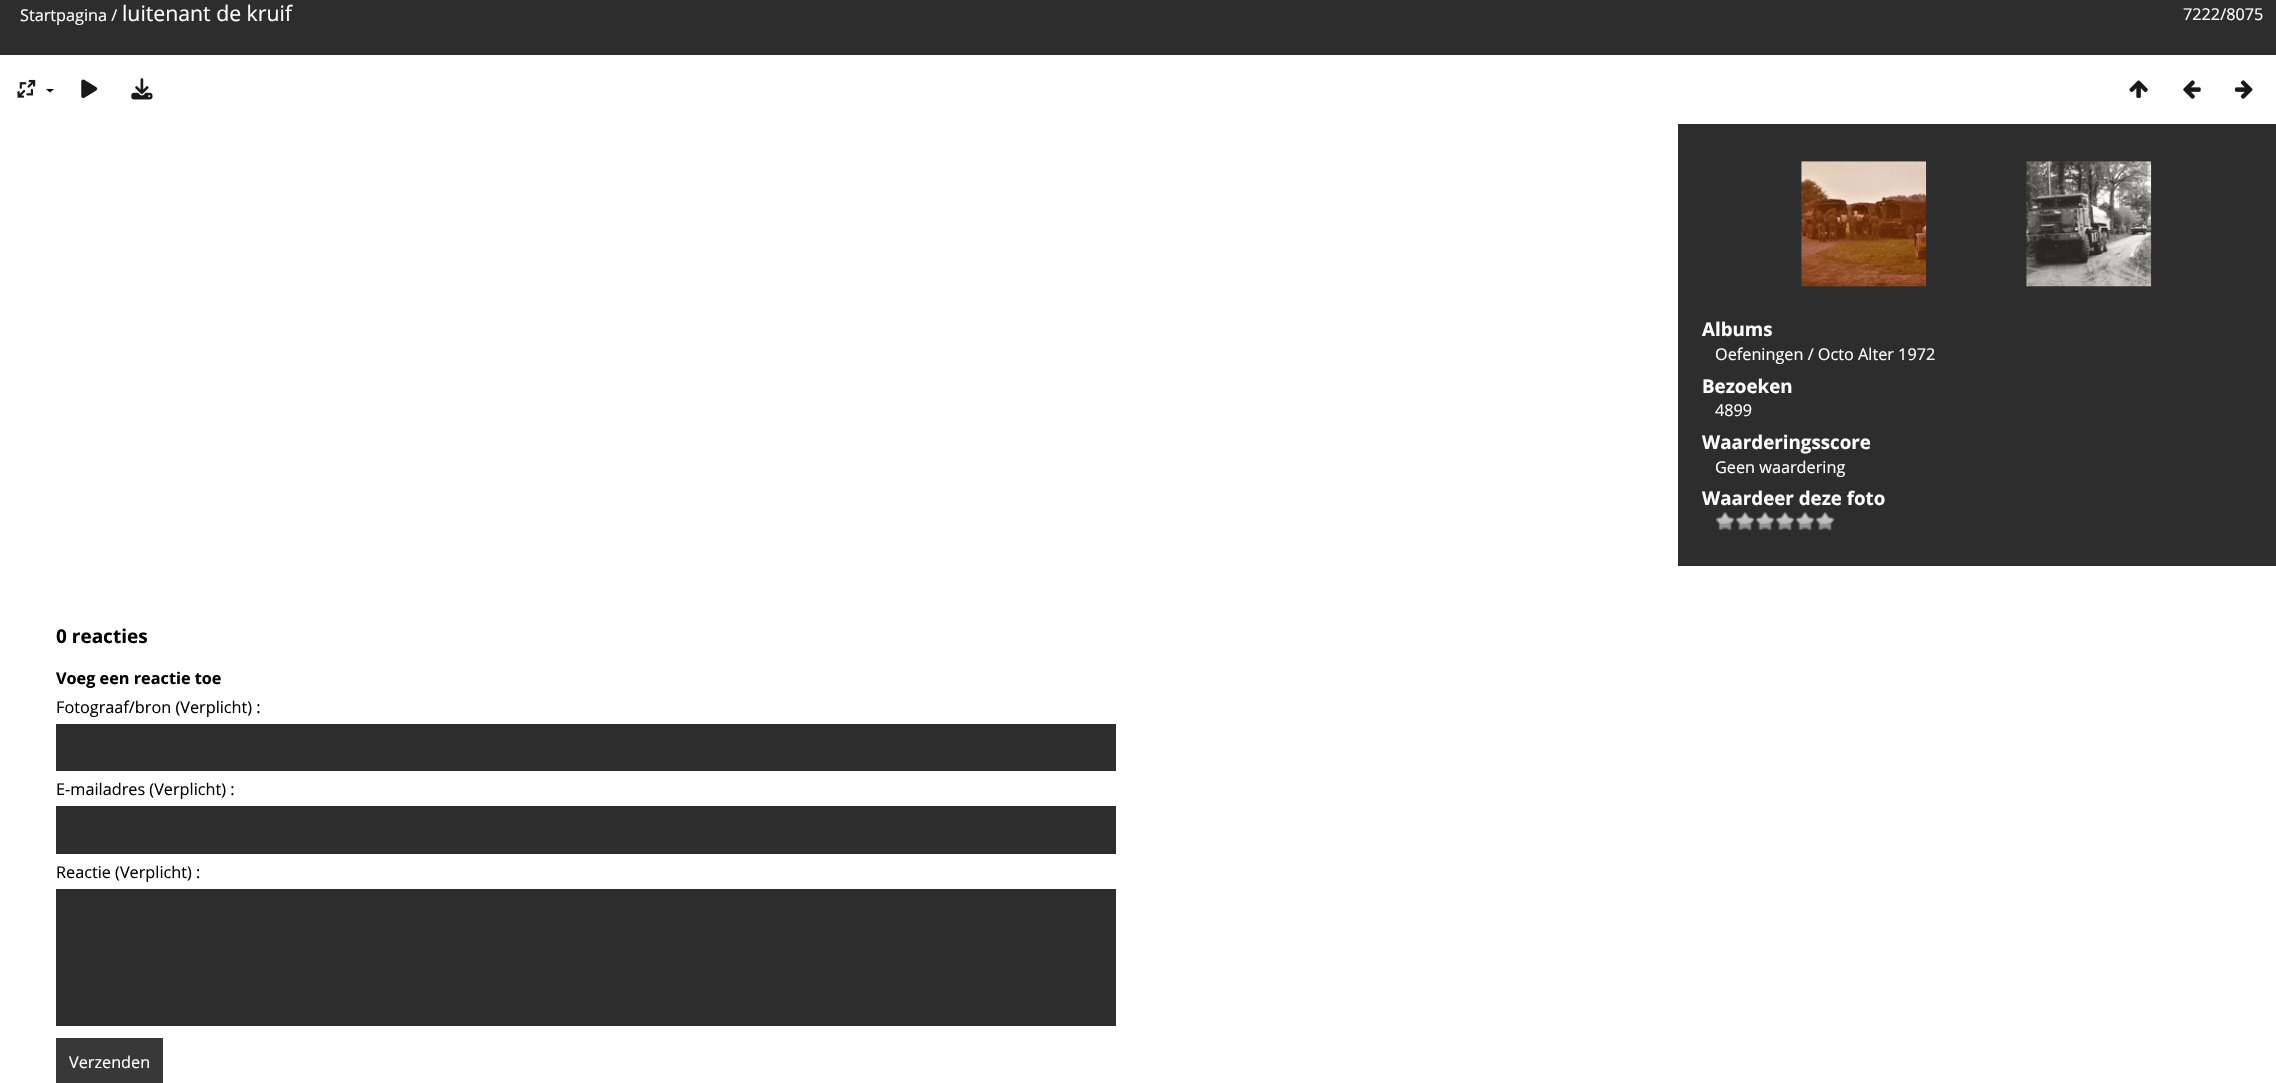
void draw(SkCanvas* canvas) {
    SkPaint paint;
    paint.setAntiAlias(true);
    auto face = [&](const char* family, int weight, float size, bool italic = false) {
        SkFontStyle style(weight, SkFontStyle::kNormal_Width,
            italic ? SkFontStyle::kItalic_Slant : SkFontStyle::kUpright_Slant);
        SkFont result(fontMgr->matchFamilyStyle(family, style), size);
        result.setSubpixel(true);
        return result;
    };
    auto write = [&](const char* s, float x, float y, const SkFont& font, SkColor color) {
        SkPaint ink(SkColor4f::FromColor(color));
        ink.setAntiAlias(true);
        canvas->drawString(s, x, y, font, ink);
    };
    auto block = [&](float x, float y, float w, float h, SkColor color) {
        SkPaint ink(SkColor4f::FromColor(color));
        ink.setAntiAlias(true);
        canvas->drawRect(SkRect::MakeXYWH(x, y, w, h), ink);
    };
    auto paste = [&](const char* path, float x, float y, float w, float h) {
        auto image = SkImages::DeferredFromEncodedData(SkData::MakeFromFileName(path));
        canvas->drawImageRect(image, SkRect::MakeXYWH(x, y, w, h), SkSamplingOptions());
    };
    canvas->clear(SK_ColorWHITE);
    block(0, 0, 2276, 55, SkColorSetRGB(45, 45, 45));
    auto kFont1 = face("Open Sans", 400, 16.25f);
    write("Startpagina /", 20, 21, kFont1, SK_ColorWHITE);
    auto kFont2 = face("Open Sans", 400, 21.25f);
    write("luitenant de kruif", 122, 21, kFont2, SK_ColorWHITE);
    write("7222/8075", 2183, 20, kFont1, SK_ColorWHITE);
    paste("pic1.png", 17, 79, 19, 19);
    paint.setColor(SK_ColorBLACK);
    canvas->drawPath(SkPathBuilder().moveTo(46, 89).lineTo(54, 89).lineTo(50, 92.5f).close().detach(), paint);
    paste("pic2.png", 81, 79, 17, 20);
    paste("pic3.png", 131, 78, 22, 22);
    paste("pic4.png", 2129, 80, 19, 18);
    paste("pic5.png", 2183, 80, 18, 19);
    paste("pic6.png", 2235, 80, 18, 19);
    block(1678, 124, 598, 442, SkColorSetRGB(45, 45, 45));
    paste("pic7.png", 1801, 161, 126, 126);
    paste("pic8.png", 2026, 161, 126, 126);
    auto kFont3 = face("Open Sans", 700, 18.75f);
    write("Albums", 1702, 336, kFont3, SK_ColorWHITE);
    write("Oefeningen / Octo Alter 1972", 1715, 360, kFont1, SK_ColorWHITE);
    write("Bezoeken", 1702, 393, kFont3, SK_ColorWHITE);
    write("4899", 1715, 416, kFont1, SK_ColorWHITE);
    write("Waarderingsscore", 1702, 449, kFont3, SK_ColorWHITE);
    write("Geen waardering", 1715, 473, kFont1, SK_ColorWHITE);
    write("Waardeer deze foto", 1702, 505, kFont3, SK_ColorWHITE);
    paste("pic9.png", 1715, 512, 20, 19);
    paste("pic9.png", 1735, 512, 20, 19);
    paste("pic9.png", 1755, 512, 20, 19);
    paste("pic10.png", 1775, 512, 20, 19);
    paste("pic9.png", 1795, 512, 20, 19);
    paste("pic9.png", 1815, 512, 20, 19);
    auto kFont4 = face("Open Sans", 700, 19);
    write("0 reacties", 56, 643, kFont4, SK_ColorBLACK);
    auto kFont5 = face("Open Sans", 700, 16.25f);
    write("Voeg een reactie toe", 56, 684, kFont5, SK_ColorBLACK);
    write("Fotograaf/bron (Verplicht) :", 56, 713, kFont1, SK_ColorBLACK);
    block(56, 724, 1060, 47, SkColorSetRGB(45, 45, 45));
    write("E-mailadres (Verplicht) :", 56, 795, kFont1, SK_ColorBLACK);
    block(56, 806, 1060, 48, SkColorSetRGB(45, 45, 45));
    write("Reactie (Verplicht) :", 56, 878, kFont1, SK_ColorBLACK);
    block(56, 889, 1060, 137, SkColorSetRGB(45, 45, 45));
    block(56, 1038, 107, 45, SkColorSetRGB(56, 56, 56));
    write("Verzenden", 69, 1068, kFont1, SK_ColorWHITE);
}
